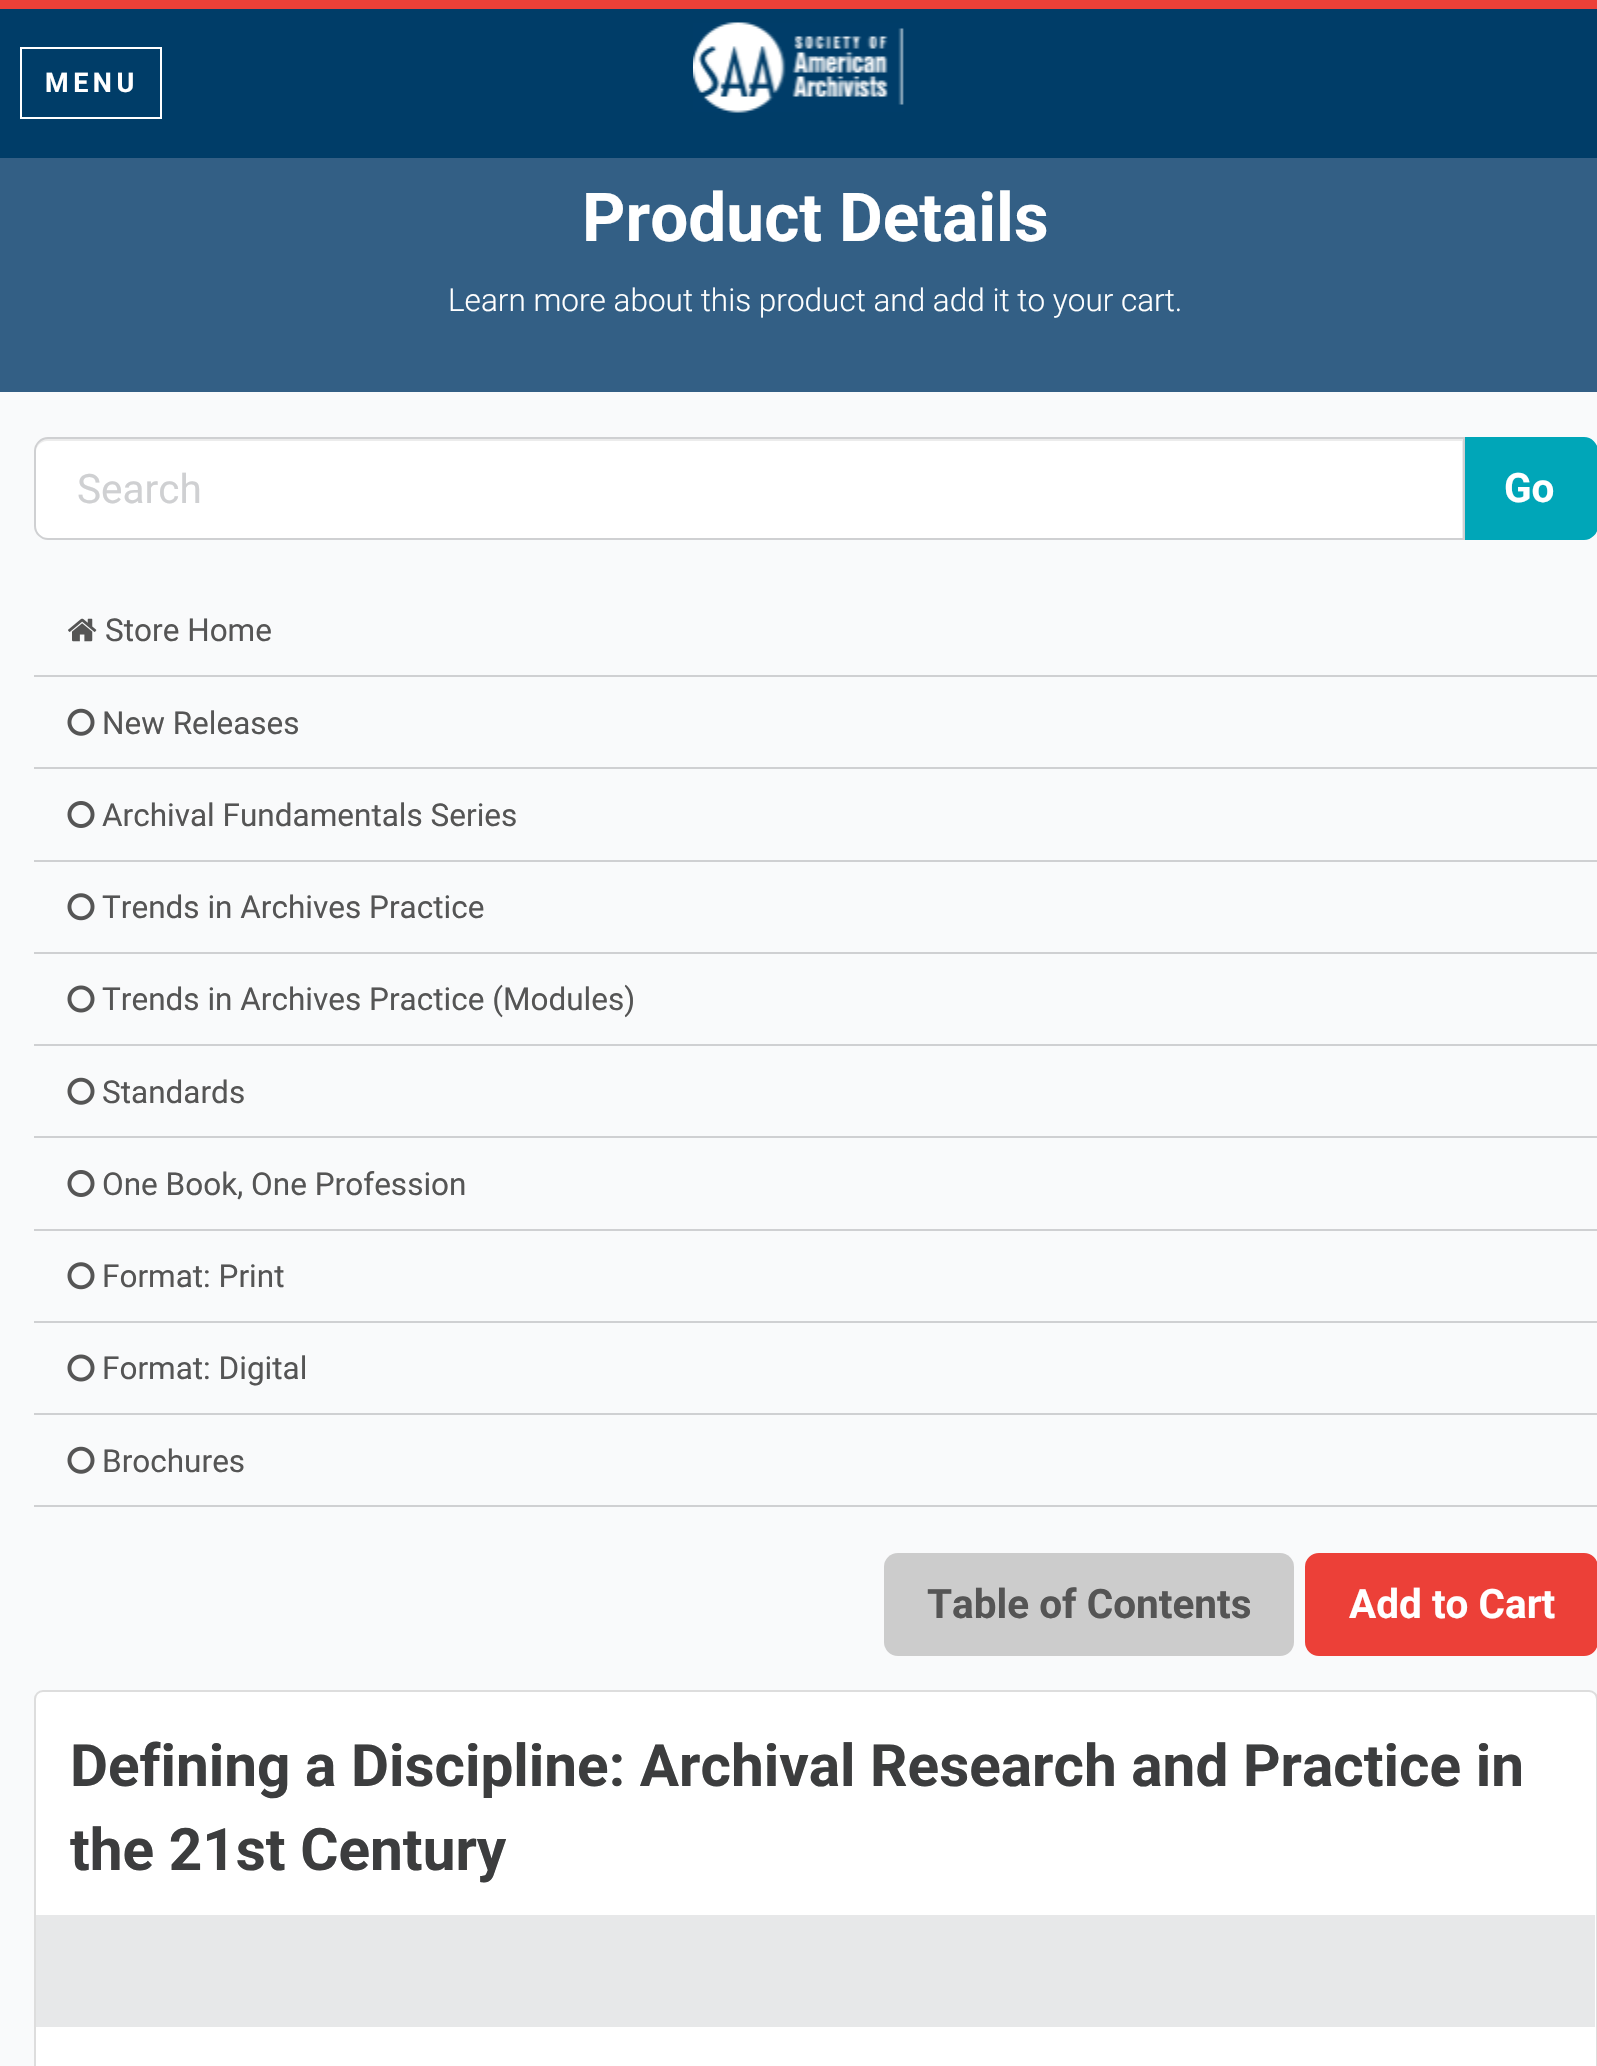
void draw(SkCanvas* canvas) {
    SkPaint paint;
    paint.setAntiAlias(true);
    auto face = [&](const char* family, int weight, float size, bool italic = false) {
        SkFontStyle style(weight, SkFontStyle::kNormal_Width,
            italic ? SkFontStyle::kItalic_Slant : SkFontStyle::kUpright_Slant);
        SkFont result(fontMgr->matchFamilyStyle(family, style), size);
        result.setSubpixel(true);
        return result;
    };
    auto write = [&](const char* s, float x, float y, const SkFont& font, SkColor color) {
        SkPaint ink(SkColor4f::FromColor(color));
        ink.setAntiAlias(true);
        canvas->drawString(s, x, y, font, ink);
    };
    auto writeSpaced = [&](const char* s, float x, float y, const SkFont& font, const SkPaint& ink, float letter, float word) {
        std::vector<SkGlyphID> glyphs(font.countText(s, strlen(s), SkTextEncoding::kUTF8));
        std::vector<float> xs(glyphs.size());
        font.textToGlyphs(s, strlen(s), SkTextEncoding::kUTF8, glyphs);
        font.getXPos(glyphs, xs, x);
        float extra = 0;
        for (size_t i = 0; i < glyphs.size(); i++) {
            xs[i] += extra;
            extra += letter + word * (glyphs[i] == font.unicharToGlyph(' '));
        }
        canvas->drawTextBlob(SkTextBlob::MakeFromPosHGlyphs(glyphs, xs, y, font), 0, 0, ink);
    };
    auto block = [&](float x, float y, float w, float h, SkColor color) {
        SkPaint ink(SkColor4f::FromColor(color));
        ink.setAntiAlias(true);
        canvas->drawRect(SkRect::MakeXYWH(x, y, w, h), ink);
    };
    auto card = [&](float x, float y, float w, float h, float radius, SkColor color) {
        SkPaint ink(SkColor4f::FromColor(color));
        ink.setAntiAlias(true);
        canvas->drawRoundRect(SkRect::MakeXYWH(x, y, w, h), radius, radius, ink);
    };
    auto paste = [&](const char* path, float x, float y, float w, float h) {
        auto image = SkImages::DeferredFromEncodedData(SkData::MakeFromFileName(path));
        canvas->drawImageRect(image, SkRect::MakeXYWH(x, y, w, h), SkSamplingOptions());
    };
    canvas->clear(SkColorSetRGB(249, 250, 251));
    block(0, 9, 1597, 149, SkColorSetRGB(0, 61, 104));
    block(0, 0, 1597, 9, SkColorSetRGB(236, 64, 56));
    paint.setStyle(SkPaint::kStroke_Style);
    paint.setStrokeWidth(2);
    paint.setColor(SK_ColorWHITE);
    canvas->drawRect(SkRect::MakeXYWH(21, 48, 140, 70), paint);
    auto kFont1 = face("Roboto", 700, 27);
    paint.setStyle(SkPaint::kFill_Style);
    writeSpaced("MENU", 45, 92, kFont1, paint, 4.5f, 0);
    paste("pic1.png", 693, 22, 211, 91);
    block(0, 158, 1597, 234, SkColorSetRGB(51, 95, 133));
    auto kFont2 = face("Roboto", 700, 67.5f);
    write("Product Details", 582, 241, kFont2, SK_ColorWHITE);
    auto kFont3 = face("Roboto", 300, 31.5f);
    write("Learn more about this product and add it to your cart.", 448, 311, kFont3, SK_ColorWHITE);
    paint.setColor(SkColorSetRGB(0, 166, 184));
    canvas->drawPath(SkPathBuilder().moveTo(1464, 438).lineTo(1584, 438).cubicTo(1591, 438, 1597, 444, 1597, 451).lineTo(1597, 526).cubicTo(1597, 533, 1591, 539, 1584, 539).lineTo(1464, 539).close().detach(), paint);
    paint.setStyle(SkPaint::kStroke_Style);
    canvas->drawPath(SkPathBuilder().moveTo(1464, 438).lineTo(1584, 438).cubicTo(1591, 438, 1597, 444, 1597, 451).lineTo(1597, 526).cubicTo(1597, 533, 1591, 539, 1584, 539).lineTo(1464, 539).close().detach(), paint);
    paint.setStyle(SkPaint::kFill_Style);
    paint.setColor(SK_ColorWHITE);
    canvas->drawPath(SkPathBuilder().moveTo(48, 437).lineTo(1465, 437).lineTo(1465, 540).lineTo(48, 540).cubicTo(40.5f, 540, 34, 533.5f, 34, 526).lineTo(34, 451).cubicTo(34, 443.5f, 40.5f, 437, 48, 437).close().detach(), paint);
    paint.setColor(SkColorSetRGB(236, 236, 236));
    canvas->drawPath(SkPathBuilder().moveTo(47, 441).lineTo(1462, 441).lineTo(1462, 538).lineTo(1463, 538).lineTo(1463, 439).lineTo(47, 439).cubicTo(40, 439, 36, 445, 36, 452).cubicTo(36, 446, 41, 441, 47, 441).close().detach(), paint);
    paint.setStyle(SkPaint::kStroke_Style);
    paint.setColor(SkColorSetRGB(207, 208, 210));
    canvas->drawPath(SkPathBuilder().moveTo(48, 438).lineTo(1464, 438).lineTo(1464, 539).lineTo(48, 539).cubicTo(41, 539, 35, 533, 35, 526).lineTo(35, 451).cubicTo(35, 444, 41, 438, 48, 438).close().detach(), paint);
    auto kFont4 = face("Roboto", 400, 40.5f);
    write("Search", 77, 503, kFont4, SkColorSetRGB(207, 208, 210));
    auto kFont5 = face("Roboto", 700, 40.5f);
    write("Go", 1504, 502, kFont5, SK_ColorWHITE);
    block(34, 675, 1563, 2, SkColorSetRGB(207, 208, 210));
    paste("pic2.png", 68, 618, 29, 24);
    auto kFont6 = face("Roboto", 400, 31.5f);
    write("Store Home", 105, 641, kFont6, SkColorSetRGB(85, 85, 85));
    block(34, 767, 1563, 2, SkColorSetRGB(207, 208, 210));
    paste("pic3.png", 67, 708, 28, 28);
    write("New Releases", 102, 734, kFont6, SkColorSetRGB(85, 85, 85));
    block(34, 860, 1563, 2, SkColorSetRGB(207, 208, 210));
    paste("pic4.png", 67, 801, 28, 27);
    write("Archival Fundamentals Series", 102, 826, kFont6, SkColorSetRGB(85, 85, 85));
    block(34, 952, 1563, 2, SkColorSetRGB(207, 208, 210));
    paste("pic5.png", 67, 893, 28, 28);
    write("Trends in Archives Practice", 102, 918, kFont6, SkColorSetRGB(85, 85, 85));
    block(34, 1044, 1563, 2, SkColorSetRGB(207, 208, 210));
    paste("pic6.png", 67, 985, 28, 28);
    write("Trends in Archives Practice (Modules)", 102, 1010, kFont6, SkColorSetRGB(85, 85, 85));
    block(34, 1136, 1563, 2, SkColorSetRGB(207, 208, 210));
    paste("pic3.png", 67, 1077, 28, 28);
    write("Standards", 102, 1103, kFont6, SkColorSetRGB(85, 85, 85));
    block(34, 1229, 1563, 2, SkColorSetRGB(207, 208, 210));
    paste("pic4.png", 67, 1170, 28, 27);
    write("One Book, One Profession", 102, 1195, kFont6, SkColorSetRGB(85, 85, 85));
    block(34, 1321, 1563, 2, SkColorSetRGB(207, 208, 210));
    paste("pic5.png", 67, 1262, 28, 28);
    write("Format: Print", 102, 1287, kFont6, SkColorSetRGB(85, 85, 85));
    block(34, 1413, 1563, 2, SkColorSetRGB(207, 208, 210));
    paste("pic6.png", 67, 1354, 28, 28);
    write("Format: Digital", 102, 1379, kFont6, SkColorSetRGB(85, 85, 85));
    block(34, 1505, 1563, 2, SkColorSetRGB(207, 208, 210));
    paste("pic3.png", 67, 1446, 28, 28);
    write("Brochures", 102, 1472, kFont6, SkColorSetRGB(85, 85, 85));
    card(884, 1553, 410, 103, 14, SkColorSetRGB(204, 204, 204));
    write("Table of Contents", 927, 1618, kFont5, SkColorSetRGB(85, 85, 85));
    paint.setStyle(SkPaint::kFill_Style);
    paint.setColor(SkColorSetRGB(236, 64, 56));
    canvas->drawRoundRect(SkRect::MakeXYWH(1306, 1554, 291, 101), 13, 13, paint);
    paint.setStyle(SkPaint::kStroke_Style);
    canvas->drawRoundRect(SkRect::MakeXYWH(1306, 1554, 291, 101), 13, 13, paint);
    write("Add to Cart", 1349, 1618, kFont5, SK_ColorWHITE);
    paint.setStyle(SkPaint::kFill_Style);
    paint.setColor(SK_ColorWHITE);
    canvas->drawRoundRect(SkRect::MakeXYWH(35, 1691, 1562, 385), 8, 8, paint);
    paint.setStyle(SkPaint::kStroke_Style);
    paint.setColor(SkColorSetRGB(221, 221, 221));
    canvas->drawRoundRect(SkRect::MakeXYWH(35, 1691, 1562, 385), 8, 8, paint);
    auto kFont7 = face("Roboto", 700, 58.5f);
    write("Defining a Discipline: Archival Research and Practice in", 70, 1786, kFont7, SkColorSetRGB(60, 61, 62));
    write("the 21st Century", 70, 1870, kFont7, SkColorSetRGB(60, 61, 62));
    block(36, 1915, 1559, 112, SkColorSetRGB(231, 232, 233));
}
